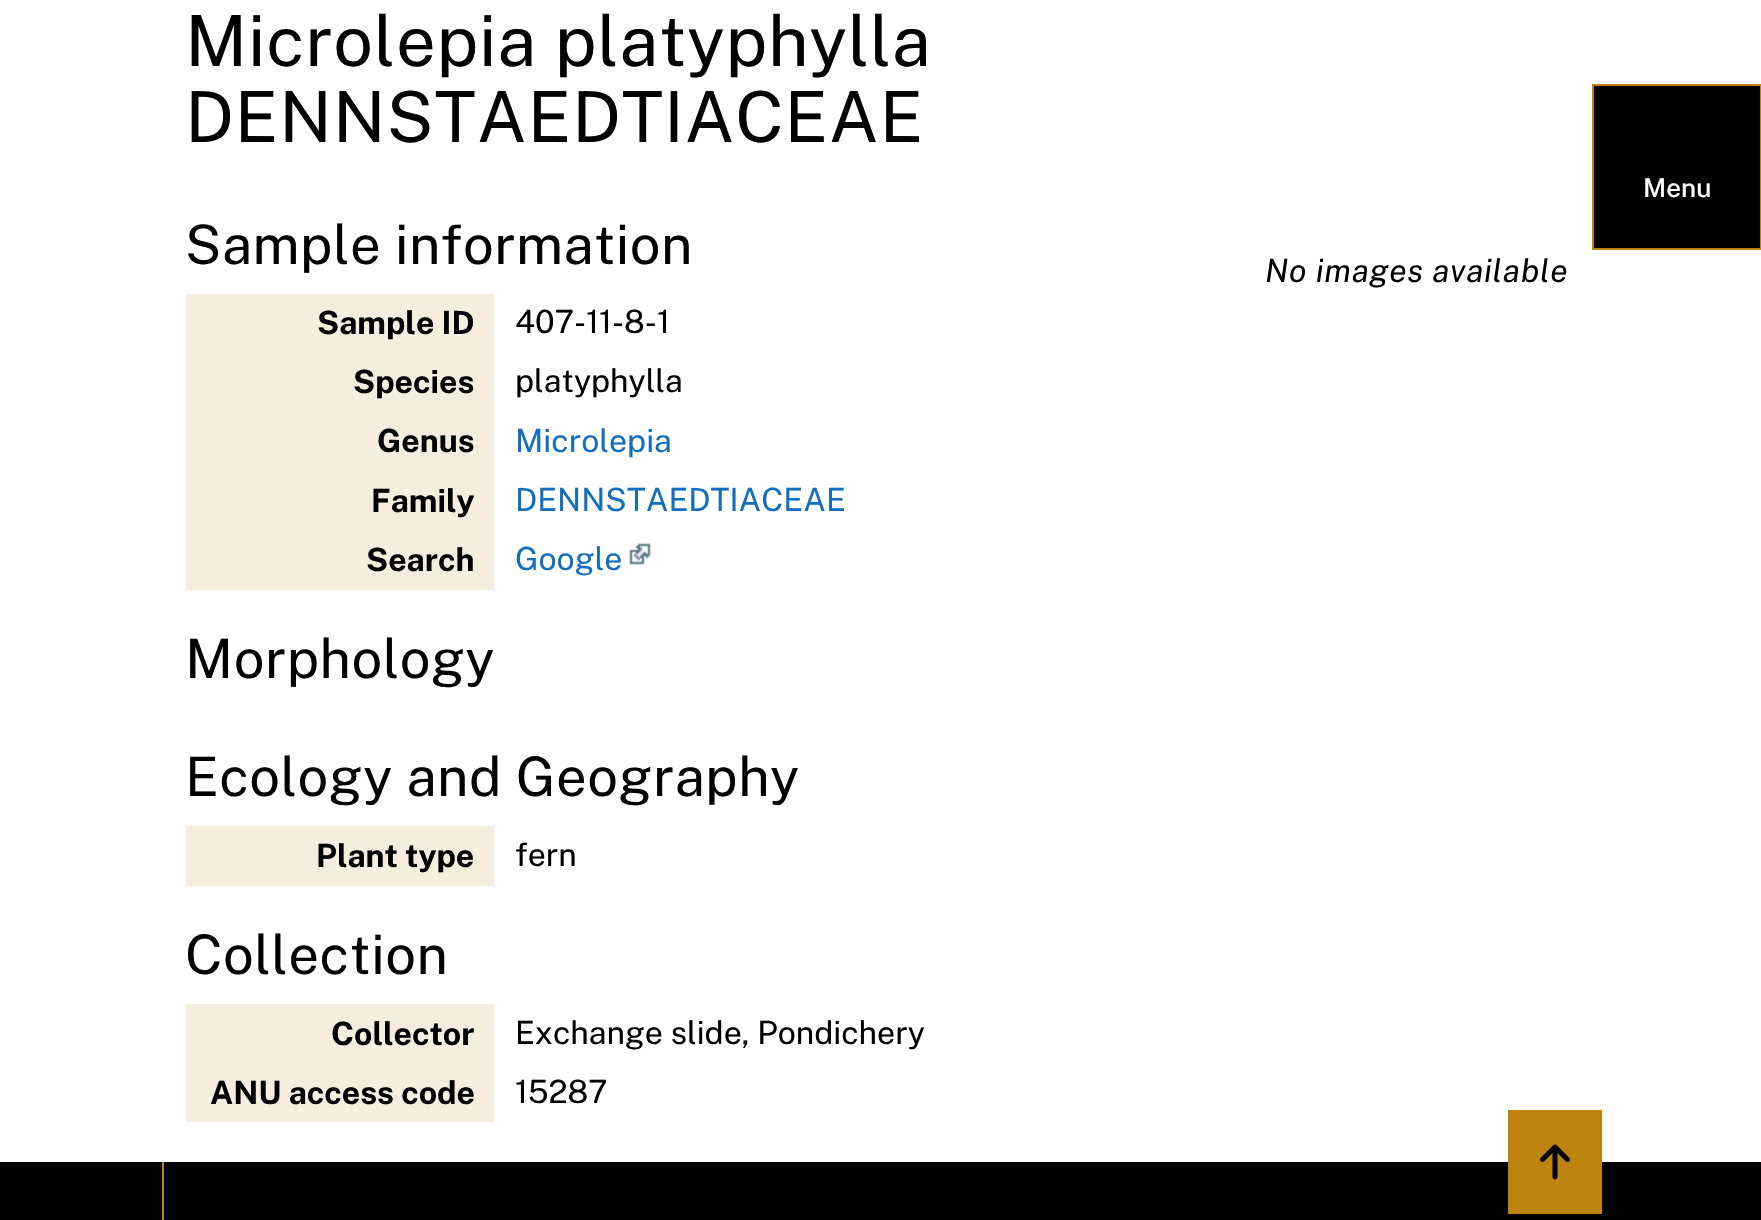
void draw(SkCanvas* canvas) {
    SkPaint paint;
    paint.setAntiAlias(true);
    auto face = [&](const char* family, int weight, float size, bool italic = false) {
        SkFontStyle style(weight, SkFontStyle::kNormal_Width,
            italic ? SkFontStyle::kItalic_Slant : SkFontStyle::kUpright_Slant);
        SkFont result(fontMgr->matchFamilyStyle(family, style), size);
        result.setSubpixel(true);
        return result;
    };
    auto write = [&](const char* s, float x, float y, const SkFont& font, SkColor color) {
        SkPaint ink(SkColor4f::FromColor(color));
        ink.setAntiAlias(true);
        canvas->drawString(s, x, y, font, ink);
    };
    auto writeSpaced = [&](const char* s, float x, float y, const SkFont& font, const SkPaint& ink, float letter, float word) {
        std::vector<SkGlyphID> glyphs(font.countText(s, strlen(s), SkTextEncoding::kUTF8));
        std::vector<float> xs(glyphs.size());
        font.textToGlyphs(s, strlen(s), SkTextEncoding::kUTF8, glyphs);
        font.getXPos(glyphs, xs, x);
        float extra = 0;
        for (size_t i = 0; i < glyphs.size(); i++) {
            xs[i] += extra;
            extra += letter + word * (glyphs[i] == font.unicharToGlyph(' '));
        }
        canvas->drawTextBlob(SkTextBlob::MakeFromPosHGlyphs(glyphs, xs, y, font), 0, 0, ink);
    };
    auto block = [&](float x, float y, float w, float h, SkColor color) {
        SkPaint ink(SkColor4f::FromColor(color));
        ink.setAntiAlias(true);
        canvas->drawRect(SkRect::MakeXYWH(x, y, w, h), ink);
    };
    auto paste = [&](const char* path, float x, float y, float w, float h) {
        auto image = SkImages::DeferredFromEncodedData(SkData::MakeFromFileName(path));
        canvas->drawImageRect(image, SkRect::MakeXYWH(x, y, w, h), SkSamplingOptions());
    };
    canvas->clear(SK_ColorWHITE);
    auto kFont1 = face("Public Sans", 400, 70.4f);
    paint.setColor(SK_ColorBLACK);
    writeSpaced("Microlepia platyphylla", 185, 66, kFont1, paint, 0.7f, 0);
    writeSpaced("DENNSTAEDTIACEAE", 185, 142, kFont1, paint, 0.7f, 0);
    canvas->drawRect(SkRect::MakeXYWH(1593, 85, 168, 164), paint);
    paint.setStyle(SkPaint::kStroke_Style);
    paint.setStrokeWidth(2);
    paint.setColor(SkColorSetRGB(190, 131, 14));
    canvas->drawRect(SkRect::MakeXYWH(1593, 85, 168, 164), paint);
    auto kFont2 = face("Public Sans", 500, 26);
    write("Menu", 1643, 197, kFont2, SK_ColorWHITE);
    auto kFont3 = face("Public Sans", 400, 54.4f);
    paint.setStyle(SkPaint::kFill_Style);
    paint.setColor(SK_ColorBLACK);
    writeSpaced("Sample information", 185, 264, kFont3, paint, 0.5f, 0);
    block(186, 294, 308, 296, SkColorSetRGB(245, 237, 222));
    auto kFont4 = face("Public Sans", 700, 32);
    write("Sample ID", 317, 334, kFont4, SK_ColorBLACK);
    auto kFont5 = face("Public Sans", 400, 32);
    write("407-11-8-1", 515, 333, kFont5, SK_ColorBLACK);
    write("Species", 353, 393, kFont4, SK_ColorBLACK);
    write("platyphylla", 515, 392, kFont5, SK_ColorBLACK);
    write("Genus", 377, 452, kFont4, SK_ColorBLACK);
    write("Microlepia", 515, 452, kFont5, SkColorSetRGB(20, 110, 189));
    write("Family", 371, 512, kFont4, SK_ColorBLACK);
    write("DENNSTAEDTIACEAE", 515, 511, kFont5, SkColorSetRGB(20, 110, 189));
    write("Search", 366, 571, kFont4, SK_ColorBLACK);
    write("Google", 515, 570, kFont5, SkColorSetRGB(20, 110, 189));
    paste("pic1.png", 629, 543, 22, 22);
    writeSpaced("Morphology", 185, 678, kFont3, paint, 0.5f, 0);
    writeSpaced("Ecology and Geography", 185, 796, kFont3, paint, 0.5f, 0);
    block(186, 826, 308, 60, SkColorSetRGB(245, 237, 222));
    write("Plant type", 316, 867, kFont4, SK_ColorBLACK);
    write("fern", 515, 866, kFont5, SK_ColorBLACK);
    writeSpaced("Collection", 185, 974, kFont3, paint, 0.5f, 0);
    block(186, 1004, 308, 118, SkColorSetRGB(245, 237, 222));
    write("Collector", 331, 1045, kFont4, SK_ColorBLACK);
    write("Exchange slide, Pondichery", 515, 1044, kFont5, SK_ColorBLACK);
    write("ANU access code", 210, 1104, kFont4, SK_ColorBLACK);
    write("15287", 515, 1103, kFont5, SK_ColorBLACK);
    auto kFont6 = face("Public Sans", 400, 32, true);
    writeSpaced("No images available", 1265, 282, kFont6, paint, 0.75f, 0);
    block(0, 1162, 1761, 58, SK_ColorBLACK);
    block(162, 1162, 2, 58, SkColorSetRGB(190, 131, 14));
    block(1508, 1110, 94, 104, SkColorSetRGB(190, 131, 14));
    paste("pic2.png", 1540, 1144, 30, 36);
}
